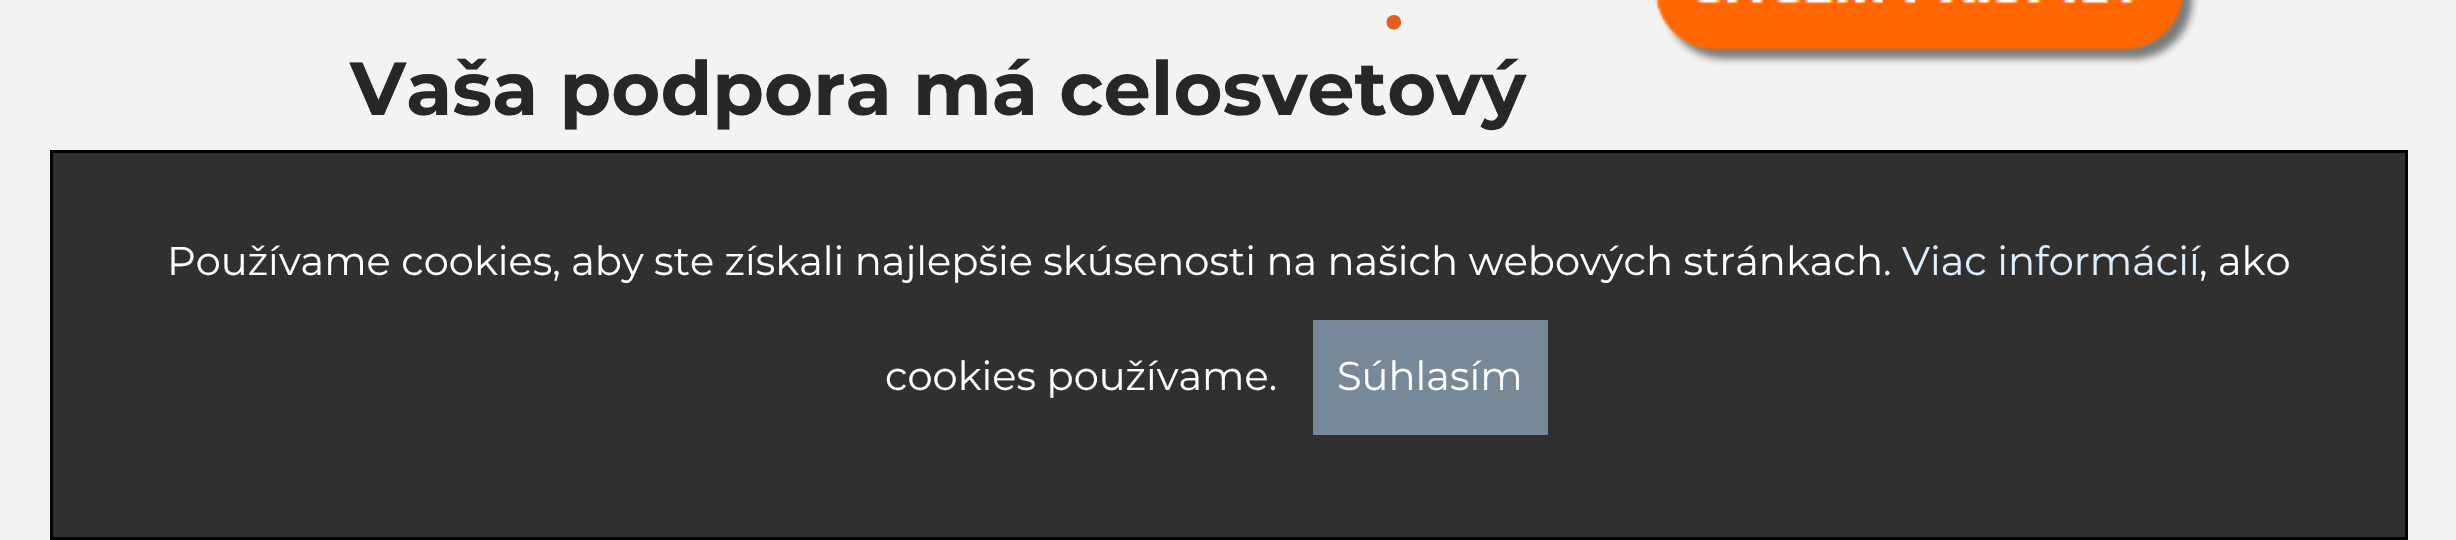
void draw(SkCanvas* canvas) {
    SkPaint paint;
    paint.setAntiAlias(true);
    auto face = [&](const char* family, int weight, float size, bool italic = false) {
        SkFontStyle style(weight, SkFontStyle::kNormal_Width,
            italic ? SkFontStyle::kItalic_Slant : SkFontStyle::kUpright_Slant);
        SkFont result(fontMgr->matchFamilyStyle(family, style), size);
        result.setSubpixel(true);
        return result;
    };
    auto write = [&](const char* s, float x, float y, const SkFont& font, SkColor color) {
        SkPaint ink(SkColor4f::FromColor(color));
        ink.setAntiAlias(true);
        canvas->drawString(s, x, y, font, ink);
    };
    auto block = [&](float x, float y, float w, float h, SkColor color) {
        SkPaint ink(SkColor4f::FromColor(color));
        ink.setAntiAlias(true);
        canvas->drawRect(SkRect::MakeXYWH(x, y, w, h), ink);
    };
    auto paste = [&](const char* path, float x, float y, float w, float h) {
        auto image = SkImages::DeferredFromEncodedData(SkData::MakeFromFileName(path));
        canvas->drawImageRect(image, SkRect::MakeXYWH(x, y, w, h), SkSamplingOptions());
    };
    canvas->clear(SkColorSetRGB(243, 243, 243));
    auto kFont1 = face("Montserrat", 700, 75);
    write(".", 1384, 29, kFont1, SkColorSetRGB(227, 95, 27));
    write("Vaša podpora má celosvetový", 350, 115, kFont1, SkColorSetRGB(39, 39, 39));
    paste("pic1.png", 1654, 0, 545, 66);
    paint.setColor(SkColorSetRGB(48, 48, 48));
    canvas->drawRect(SkRect::MakeXYWH(51.5f, 151.5f, 2355, 387), paint);
    paint.setStyle(SkPaint::kStroke_Style);
    paint.setStrokeWidth(3);
    paint.setColor(SK_ColorBLACK);
    canvas->drawRect(SkRect::MakeXYWH(51.5f, 151.5f, 2355, 387), paint);
    auto kFont2 = face("Montserrat", 400, 40);
    write("Používame cookies, aby ste získali najlepšie skúsenosti na našich webových stránkach.", 167, 275, kFont2, SK_ColorWHITE);
    write("Viac informácií", 1902, 275, kFont2, SkColorSetRGB(221, 238, 255));
    write(", ako", 2199, 275, kFont2, SK_ColorWHITE);
    write("cookies používame.", 885, 390, kFont2, SK_ColorWHITE);
    block(1313, 320, 235, 115, SkColorSetRGB(119, 136, 153));
    write("Súhlasím", 1337, 390, kFont2, SK_ColorWHITE);
}
